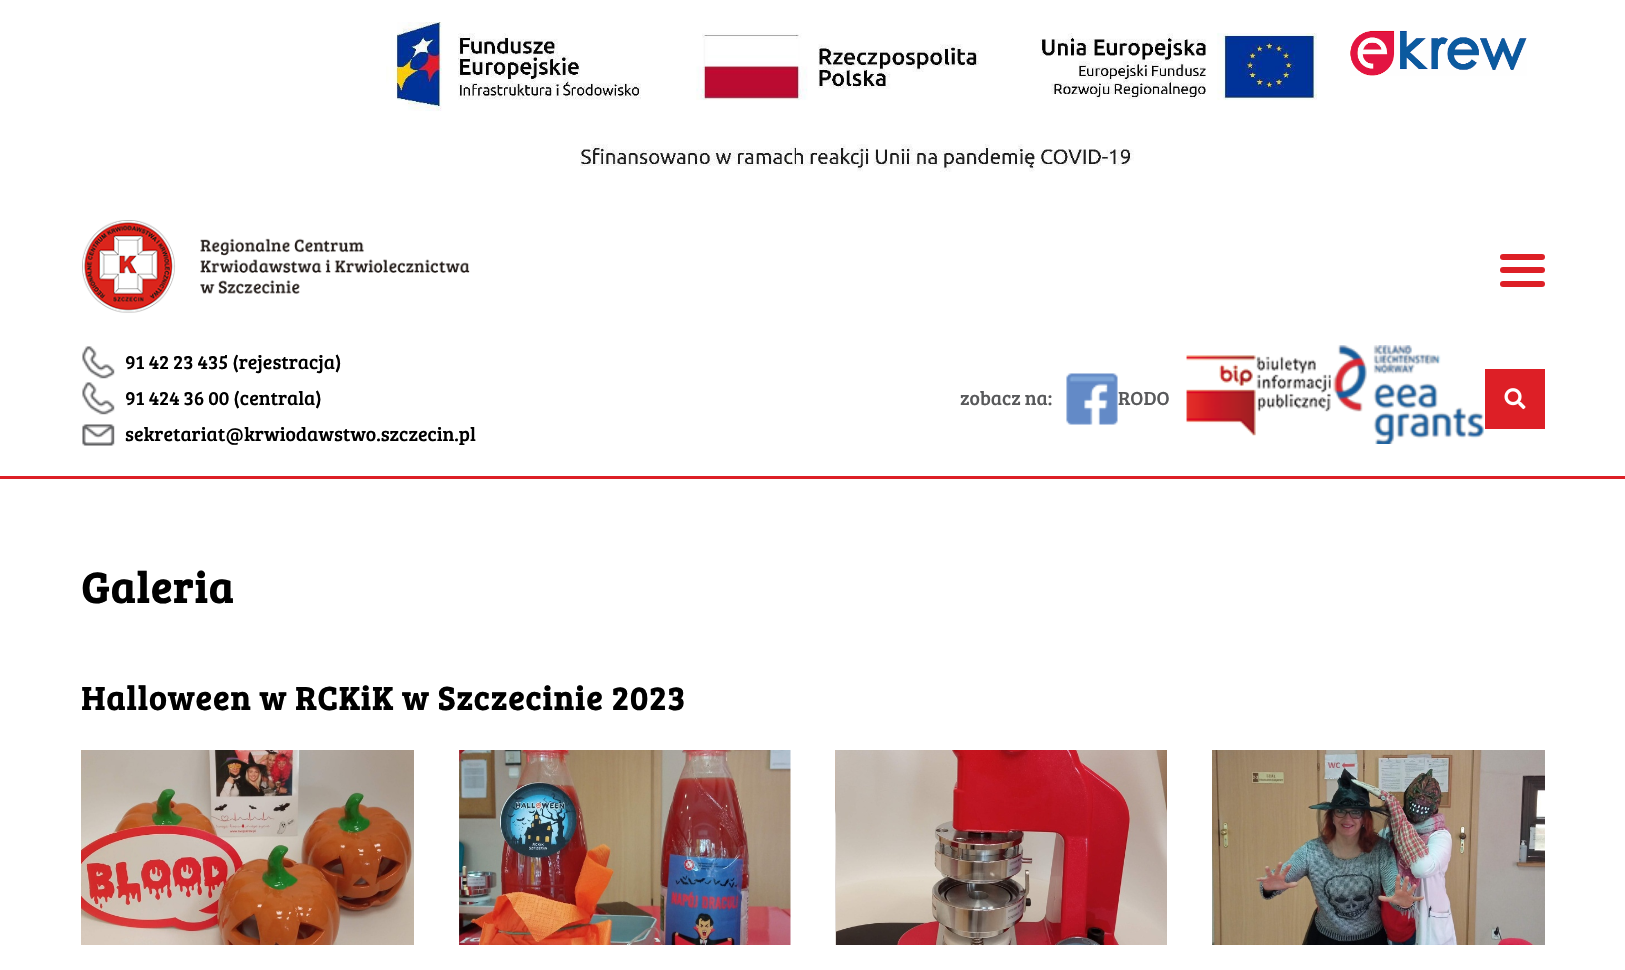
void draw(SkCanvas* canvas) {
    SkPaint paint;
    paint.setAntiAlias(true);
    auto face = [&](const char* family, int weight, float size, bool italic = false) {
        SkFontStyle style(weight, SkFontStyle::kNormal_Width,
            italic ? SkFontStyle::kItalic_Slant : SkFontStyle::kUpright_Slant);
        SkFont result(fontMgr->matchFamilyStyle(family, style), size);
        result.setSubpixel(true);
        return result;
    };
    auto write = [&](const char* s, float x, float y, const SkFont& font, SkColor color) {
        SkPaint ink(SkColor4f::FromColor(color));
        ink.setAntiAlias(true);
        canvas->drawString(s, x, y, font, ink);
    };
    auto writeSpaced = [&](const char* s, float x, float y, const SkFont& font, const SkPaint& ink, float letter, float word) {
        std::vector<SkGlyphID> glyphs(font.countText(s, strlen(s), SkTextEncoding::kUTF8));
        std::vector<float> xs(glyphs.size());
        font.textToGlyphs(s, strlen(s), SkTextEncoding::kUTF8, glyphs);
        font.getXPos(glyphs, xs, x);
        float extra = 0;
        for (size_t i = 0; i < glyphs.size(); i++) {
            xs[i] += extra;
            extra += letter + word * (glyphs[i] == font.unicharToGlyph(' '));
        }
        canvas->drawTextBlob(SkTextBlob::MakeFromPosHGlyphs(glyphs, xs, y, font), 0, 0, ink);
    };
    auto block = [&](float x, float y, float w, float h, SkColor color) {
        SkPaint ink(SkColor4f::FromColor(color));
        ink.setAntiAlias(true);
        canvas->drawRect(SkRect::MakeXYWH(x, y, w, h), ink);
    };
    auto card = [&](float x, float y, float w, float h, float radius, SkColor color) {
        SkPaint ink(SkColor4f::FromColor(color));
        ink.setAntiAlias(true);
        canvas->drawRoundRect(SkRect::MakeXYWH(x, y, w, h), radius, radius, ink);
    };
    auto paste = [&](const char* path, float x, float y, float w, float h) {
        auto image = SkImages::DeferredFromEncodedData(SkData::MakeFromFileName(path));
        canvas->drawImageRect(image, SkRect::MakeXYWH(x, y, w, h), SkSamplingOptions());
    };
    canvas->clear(SK_ColorWHITE);
    paste("pic1.png", 386, 22, 932, 150);
    paste("pic2.png", 1350, 30, 177, 46);
    block(0, 476, 1625, 3, SkColorSetRGB(221, 31, 38));
    paste("pic3.png", 82, 220, 388, 93);
    card(1500, 254, 45, 6, 3, SkColorSetRGB(221, 31, 38));
    card(1500, 267, 45, 6, 3, SkColorSetRGB(221, 31, 38));
    card(1500, 281, 45, 6, 3, SkColorSetRGB(221, 31, 38));
    paste("pic4.png", 82, 346, 33, 33);
    auto kFont1 = face("Bree Serif", 400, 19.7f);
    write("91 42 23 435 (rejestracja)", 125, 369, kFont1, SK_ColorBLACK);
    paste("pic4.png", 82, 382, 33, 33);
    write("91 424 36 00 (centrala)", 125, 405, kFont1, SK_ColorBLACK);
    paste("pic5.png", 82, 424, 33, 22);
    write("sekretariat@krwiodawstwo.szczecin.pl", 125, 441, kFont1, SK_ColorBLACK);
    write("zobacz na:", 960, 405, kFont1, SkColorSetRGB(88, 89, 91));
    paste("pic6.png", 1066, 373, 52, 52);
    write("RODO", 1118, 405, kFont1, SkColorSetRGB(88, 89, 91));
    paste("pic7.png", 1186, 355, 145, 81);
    paste("pic8.png", 1333, 345, 151, 99);
    block(1485, 369, 60, 60, SkColorSetRGB(221, 31, 38));
    paste("pic9.png", 1504, 388, 22, 22);
    auto kFont2 = face("Bree Serif", 700, 43.5f);
    paint.setColor(SK_ColorBLACK);
    writeSpaced("Galeria", 81, 603, kFont2, paint, 1.3f, 0);
    auto kFont3 = face("Bree Serif", 700, 33.3f);
    writeSpaced("Halloween w RCKiK w Szczecinie 2023", 81, 710, kFont3, paint, 1.3f, 0);
    paste("pic10.png", 81, 750, 333, 195);
    paste("pic11.png", 459, 750, 332, 195);
    paste("pic12.png", 835, 750, 332, 195);
    paste("pic13.png", 1212, 750, 333, 195);
}
